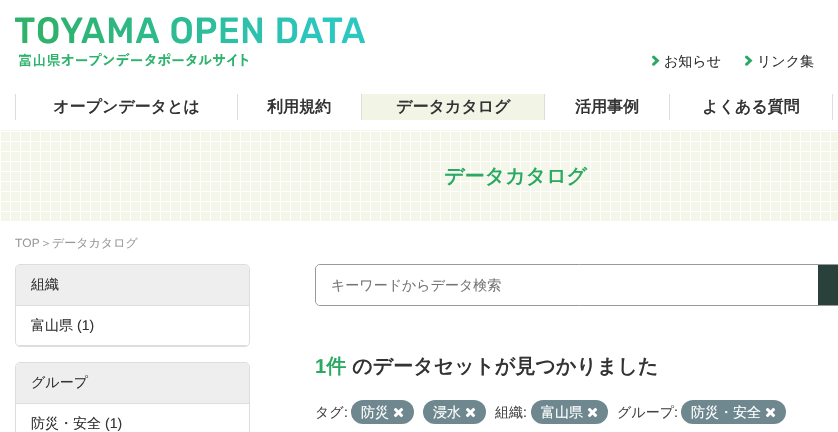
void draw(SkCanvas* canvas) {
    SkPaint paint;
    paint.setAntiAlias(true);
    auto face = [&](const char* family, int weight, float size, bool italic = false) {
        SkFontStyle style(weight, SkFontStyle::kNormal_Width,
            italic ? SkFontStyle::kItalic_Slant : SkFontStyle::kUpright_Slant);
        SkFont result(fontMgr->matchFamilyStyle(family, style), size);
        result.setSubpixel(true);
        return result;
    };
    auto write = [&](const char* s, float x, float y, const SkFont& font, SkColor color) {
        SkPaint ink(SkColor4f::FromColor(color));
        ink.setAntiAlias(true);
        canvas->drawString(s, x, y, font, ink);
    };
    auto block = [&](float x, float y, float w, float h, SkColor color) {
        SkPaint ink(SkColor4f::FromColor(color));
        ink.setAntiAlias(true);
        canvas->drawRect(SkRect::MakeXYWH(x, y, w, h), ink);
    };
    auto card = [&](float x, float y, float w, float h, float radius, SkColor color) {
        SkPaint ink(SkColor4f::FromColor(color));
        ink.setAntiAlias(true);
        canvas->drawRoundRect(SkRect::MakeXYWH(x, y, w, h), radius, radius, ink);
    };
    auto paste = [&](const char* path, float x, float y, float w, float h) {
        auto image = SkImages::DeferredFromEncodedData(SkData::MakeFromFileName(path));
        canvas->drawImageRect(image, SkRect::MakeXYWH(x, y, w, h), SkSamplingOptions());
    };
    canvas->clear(SK_ColorWHITE);
    paste("pic1.png", 15, 17, 350, 50);
    paste("pic2.png", 652, 55, 8, 11);
    auto kFont1 = face("WenQuanYi Zen Hei", 500, 14);
    write("お知らせ", 664, 66, kFont1, SkColorSetRGB(51, 51, 51));
    paste("pic2.png", 745, 55, 8, 11);
    write("リンク集", 757, 66, kFont1, SkColorSetRGB(51, 51, 51));
    block(237, 94, 1, 26, SkColorSetRGB(221, 221, 221));
    block(15, 94, 1, 26, SkColorSetRGB(221, 221, 221));
    auto kFont2 = face("WenQuanYi Zen Hei", 700, 16);
    write("オープンデータとは", 53, 112, kFont2, SkColorSetRGB(51, 51, 51));
    block(361, 94, 1, 26, SkColorSetRGB(221, 221, 221));
    write("利用規約", 267, 112, kFont2, SkColorSetRGB(51, 51, 51));
    block(362, 94, 182, 26, SkColorSetRGB(242, 244, 230));
    block(544, 94, 1, 26, SkColorSetRGB(221, 221, 221));
    write("データカタログ", 396, 112, kFont2, SkColorSetRGB(51, 51, 51));
    block(669, 94, 1, 26, SkColorSetRGB(221, 221, 221));
    write("活用事例", 575, 112, kFont2, SkColorSetRGB(51, 51, 51));
    block(832, 94, 1, 26, SkColorSetRGB(221, 221, 221));
    write("よくある質問", 702, 112, kFont2, SkColorSetRGB(51, 51, 51));
    paste("pic3.png", 1, 130, 837, 91);
    auto kFont3 = face("WenQuanYi Zen Hei", 700, 20);
    write("データカタログ", 444, 183, kFont3, SkColorSetRGB(41, 169, 97));
    auto kFont4 = face("Liberation Sans", 400, 12);
    write("TOP", 15, 247, kFont4, SkColorSetRGB(153, 153, 153));
    auto kFont5 = face("WenQuanYi Zen Hei", 500, 12);
    write("＞データカタログ", 40, 247, kFont5, SkColorSetRGB(153, 153, 153));
    paint.setStyle(SkPaint::kStroke_Style);
    paint.setStrokeWidth(1);
    paint.setColor(SkColorSetRGB(221, 221, 221));
    canvas->drawRoundRect(SkRect::MakeXYWH(15.5f, 264.5f, 234, 82), 4.5f, 4.5f, paint);
    paint.setStyle(SkPaint::kFill_Style);
    paint.setColor(SkColorSetRGB(238, 238, 238));
    canvas->drawPath(SkPathBuilder().moveTo(20, 265).lineTo(245, 265).cubicTo(247, 265, 249, 267, 249, 269).lineTo(249, 306).lineTo(16, 306).lineTo(16, 269).cubicTo(16, 267, 18, 265, 20, 265).close().detach(), paint);
    block(16, 305, 233, 1, SkColorSetRGB(221, 221, 221));
    write("組織", 31, 289, kFont1, SkColorSetRGB(51, 51, 51));
    write("富山県", 31, 330, kFont1, SkColorSetRGB(51, 51, 51));
    auto kFont6 = face("Liberation Sans", 400, 14);
    write("(1)", 77, 330, kFont6, SkColorSetRGB(51, 51, 51));
    canvas->save();
    canvas->clipPath(SkPathBuilder().moveTo(20, 265).lineTo(245, 265).cubicTo(247, 265, 249, 267, 249, 269).lineTo(249, 342).cubicTo(249, 344, 247, 346, 245, 346).lineTo(20, 346).cubicTo(18, 346, 16, 344, 16, 342).lineTo(16, 269).cubicTo(16, 267, 18, 265, 20, 265).close().detach(), true);
    block(16, 345, 233, 1, SkColorSetRGB(221, 221, 221));
    canvas->restore();
    paint.setStyle(SkPaint::kStroke_Style);
    paint.setColor(SkColorSetRGB(221, 221, 221));
    canvas->drawRoundRect(SkRect::MakeXYWH(15.5f, 362.5f, 234, 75), 4.5f, 4.5f, paint);
    paint.setStyle(SkPaint::kFill_Style);
    paint.setColor(SkColorSetRGB(238, 238, 238));
    canvas->drawPath(SkPathBuilder().moveTo(20, 363).lineTo(245, 363).cubicTo(247, 363, 249, 365, 249, 367).lineTo(249, 404).lineTo(16, 404).lineTo(16, 367).cubicTo(16, 365, 18, 363, 20, 363).close().detach(), paint);
    block(16, 403, 233, 1, SkColorSetRGB(221, 221, 221));
    write("グループ", 31, 387, kFont1, SkColorSetRGB(51, 51, 51));
    write("防災・安全", 31, 428, kFont1, SkColorSetRGB(51, 51, 51));
    write("(1)", 105, 428, kFont6, SkColorSetRGB(51, 51, 51));
    paint.setStyle(SkPaint::kStroke_Style);
    paint.setColor(SkColorSetRGB(153, 153, 153));
    canvas->drawRoundRect(SkRect::MakeXYWH(315.5f, 264.5f, 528, 41), 4.5f, 4.5f, paint);
    paint.setStyle(SkPaint::kFill_Style);
    paint.setColor(SK_ColorWHITE);
    canvas->drawPath(SkPathBuilder().moveTo(320, 265).lineTo(818, 265).lineTo(818, 305).lineTo(320, 305).cubicTo(318, 305, 316, 303, 316, 301).lineTo(316, 269).cubicTo(316, 267, 318, 265, 320, 265).close().detach(), paint);
    write("キーワードからデータ検索", 331, 290, kFont1, SkColorSetRGB(117, 117, 117));
    block(818, 265, 20, 40, SkColorSetRGB(41, 65, 58));
    auto kFont7 = face("Liberation Sans", 700, 20);
    write("1", 315, 373, kFont7, SkColorSetRGB(41, 169, 97));
    write("件", 326, 373, kFont3, SkColorSetRGB(41, 169, 97));
    write("のデータセットが見つかりました", 352, 373, kFont3, SkColorSetRGB(51, 51, 51));
    write("タグ", 315, 417, kFont1, SkColorSetRGB(68, 68, 68));
    write(":", 344, 417, kFont6, SkColorSetRGB(68, 68, 68));
    card(351, 400, 63, 24, 12, SkColorSetRGB(111, 136, 144));
    write("防災", 361, 417, kFont1, SK_ColorWHITE);
    paste("pic4.png", 393, 407, 11, 11);
    card(423, 400, 63, 24, 12, SkColorSetRGB(111, 136, 144));
    write("浸水", 433, 417, kFont1, SK_ColorWHITE);
    paste("pic4.png", 465, 407, 11, 11);
    write("組織", 495, 417, kFont1, SkColorSetRGB(68, 68, 68));
    write(":", 523, 417, kFont6, SkColorSetRGB(68, 68, 68));
    card(531, 400, 77, 24, 12, SkColorSetRGB(111, 136, 144));
    write("富山県", 541, 417, kFont1, SK_ColorWHITE);
    paste("pic4.png", 587, 407, 11, 11);
    write("グループ", 617, 417, kFont1, SkColorSetRGB(68, 68, 68));
    write(":", 674, 417, kFont6, SkColorSetRGB(68, 68, 68));
    card(681, 400, 105, 24, 12, SkColorSetRGB(111, 136, 144));
    write("防災・安全", 691, 417, kFont1, SK_ColorWHITE);
    paste("pic4.png", 765, 407, 11, 11);
}
